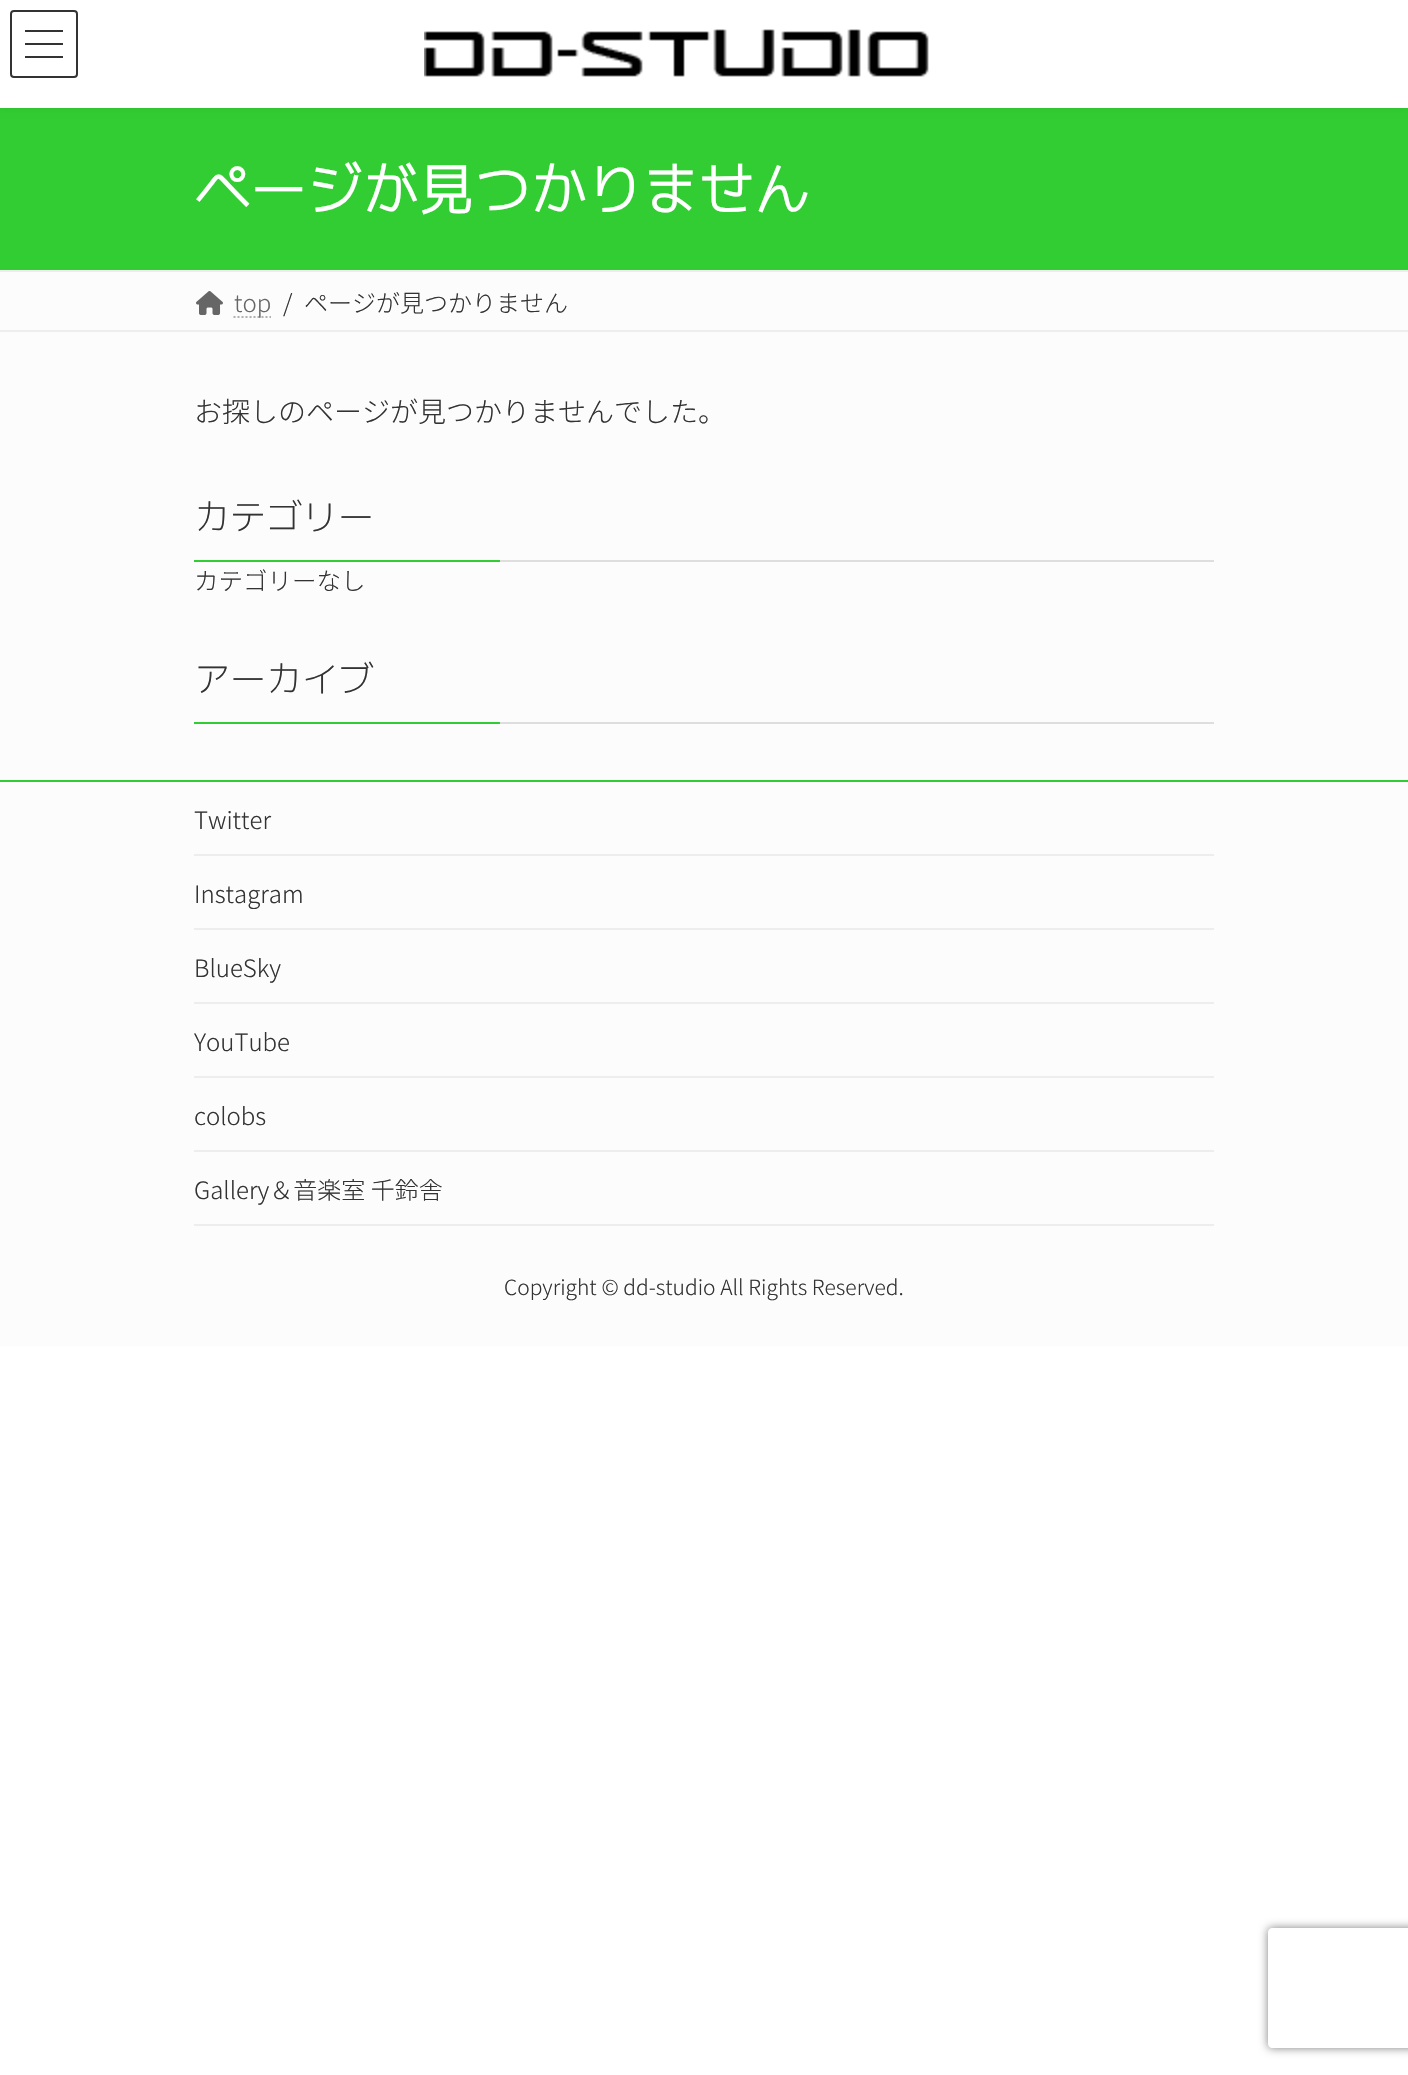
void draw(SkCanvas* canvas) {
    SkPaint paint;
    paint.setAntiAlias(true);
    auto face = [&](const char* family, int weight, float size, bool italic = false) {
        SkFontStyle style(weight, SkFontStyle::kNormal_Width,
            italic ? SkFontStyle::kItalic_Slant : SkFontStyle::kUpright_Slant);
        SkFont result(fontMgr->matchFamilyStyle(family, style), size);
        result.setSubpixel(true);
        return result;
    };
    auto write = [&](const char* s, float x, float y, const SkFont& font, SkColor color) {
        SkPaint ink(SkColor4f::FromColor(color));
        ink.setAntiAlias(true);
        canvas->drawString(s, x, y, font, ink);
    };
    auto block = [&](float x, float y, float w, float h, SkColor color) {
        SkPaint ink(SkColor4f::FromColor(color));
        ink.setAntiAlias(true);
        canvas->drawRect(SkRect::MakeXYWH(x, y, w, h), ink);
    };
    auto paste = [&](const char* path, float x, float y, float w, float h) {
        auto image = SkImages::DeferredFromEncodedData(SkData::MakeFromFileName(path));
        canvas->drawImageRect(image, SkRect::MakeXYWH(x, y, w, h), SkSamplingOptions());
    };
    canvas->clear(SK_ColorWHITE);
    block(0, 272, 1408, 1074, SkColorSetRGB(252, 252, 252));
    block(0, 108, 1408, 162, SkColorSetRGB(50, 205, 50));
    paint.setColor(SkColorSetARGB(13, 0, 0, 0));
    paint.setMaskFilter(SkMaskFilter::MakeBlur(kNormal_SkBlurStyle, 3));
    canvas->drawRect(SkRect::MakeXYWH(0, 2, 1408, 108), paint);
    paint.setMaskFilter(nullptr);
    block(0, 0, 1408, 108, SK_ColorWHITE);
    paste("pic1.png", 424, 29, 505, 48);
    block(25, 30, 38, 2, SkColorSetRGB(51, 51, 51));
    block(25, 43, 38, 2, SkColorSetRGB(51, 51, 51));
    block(25, 56, 38, 2, SkColorSetRGB(51, 51, 51));
    paint.setStyle(SkPaint::kStroke_Style);
    paint.setStrokeWidth(2);
    paint.setColor(SkColorSetRGB(51, 51, 51));
    canvas->drawRoundRect(SkRect::MakeXYWH(11, 11, 66, 66), 3, 3, paint);
    auto kFont1 = face("M PLUS 1p", 700, 56);
    write("ページが見つかりません", 194, 210, kFont1, SK_ColorWHITE);
    block(0, 270, 1408, 2, SkColorSetRGB(237, 237, 237));
    block(0, 330, 1408, 2, SkColorSetRGB(237, 237, 237));
    paste("pic2.png", 196, 291, 27, 24);
    paint.setColor(SkColorSetRGB(176, 176, 176));
    paint.setPathEffect(SkDashPathEffect::Make({{2, 2}}, 0));
    canvas->drawPath(SkPathBuilder().moveTo(233.5f, 317).lineTo(271, 317).detach(), paint);
    paint.setPathEffect(nullptr);
    auto kFont2 = face("Noto Sans JP", 300, 24);
    write("top", 234, 312, kFont2, SkColorSetRGB(102, 102, 102));
    write("/", 283, 312, kFont2, SkColorSetRGB(51, 51, 51));
    write("ページが見つかりません", 304, 312, kFont2, SkColorSetRGB(51, 51, 51));
    auto kFont3 = face("Noto Sans JP", 300, 28);
    write("お探しのページが見つかりませんでした。", 194, 422, kFont3, SkColorSetRGB(51, 51, 51));
    block(500, 560, 714, 2, SkColorSetRGB(222, 222, 222));
    auto kFont4 = face("M PLUS 1p", 300, 36);
    write("カテゴリー", 194, 530, kFont4, SkColorSetRGB(51, 51, 51));
    block(194, 560, 306, 2, SkColorSetRGB(50, 205, 50));
    auto kFont5 = face("Noto Sans JP", 300, 24.5f);
    write("カテゴリーなし", 194, 590, kFont5, SkColorSetRGB(51, 51, 51));
    block(500, 722, 714, 2, SkColorSetRGB(222, 222, 222));
    write("アーカイブ", 194, 692, kFont4, SkColorSetRGB(51, 51, 51));
    block(194, 722, 306, 2, SkColorSetRGB(50, 205, 50));
    block(0, 780, 1408, 2, SkColorSetRGB(50, 205, 50));
    block(194, 854, 1020, 2, SkColorSetRGB(237, 237, 237));
    write("Twitter", 194, 829, kFont2, SkColorSetRGB(51, 51, 51));
    block(194, 928, 1020, 2, SkColorSetRGB(237, 237, 237));
    write("Instagram", 194, 903, kFont2, SkColorSetRGB(51, 51, 51));
    block(194, 1002, 1020, 2, SkColorSetRGB(237, 237, 237));
    write("BlueSky", 194, 977, kFont2, SkColorSetRGB(51, 51, 51));
    block(194, 1076, 1020, 2, SkColorSetRGB(237, 237, 237));
    write("YouTube", 194, 1051, kFont2, SkColorSetRGB(51, 51, 51));
    block(194, 1150, 1020, 2, SkColorSetRGB(237, 237, 237));
    write("colobs", 194, 1125, kFont2, SkColorSetRGB(51, 51, 51));
    block(194, 1224, 1020, 2, SkColorSetRGB(237, 237, 237));
    write("Gallery＆音楽室 千鈴舎", 194, 1199, kFont2, SkColorSetRGB(51, 51, 51));
    auto kFont6 = face("Noto Sans JP", 300, 21);
    write("Copyright © dd-studio All Rights Reserved.", 504, 1295, kFont6, SkColorSetRGB(51, 51, 51));
    canvas->save();
    canvas->clipPath(SkPathBuilder(SkPathFillType::kEvenOdd).moveTo(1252, 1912).lineTo(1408, 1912).lineTo(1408, 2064).lineTo(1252, 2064).close().moveTo(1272, 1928).lineTo(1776, 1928).cubicTo(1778, 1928, 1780, 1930, 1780, 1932).lineTo(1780, 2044).cubicTo(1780, 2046, 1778, 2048, 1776, 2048).lineTo(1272, 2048).cubicTo(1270, 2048, 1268, 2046, 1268, 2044).lineTo(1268, 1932).cubicTo(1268, 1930, 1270, 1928, 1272, 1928).close().detach(), true);
    paint.setStyle(SkPaint::kFill_Style);
    paint.setColor(SkColorSetRGB(128, 128, 128));
    paint.setMaskFilter(SkMaskFilter::MakeBlur(kNormal_SkBlurStyle, 5));
    canvas->drawRoundRect(SkRect::MakeXYWH(1268, 1928, 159, 120), 4, 4, paint);
    paint.setMaskFilter(nullptr);
    canvas->restore();
}
